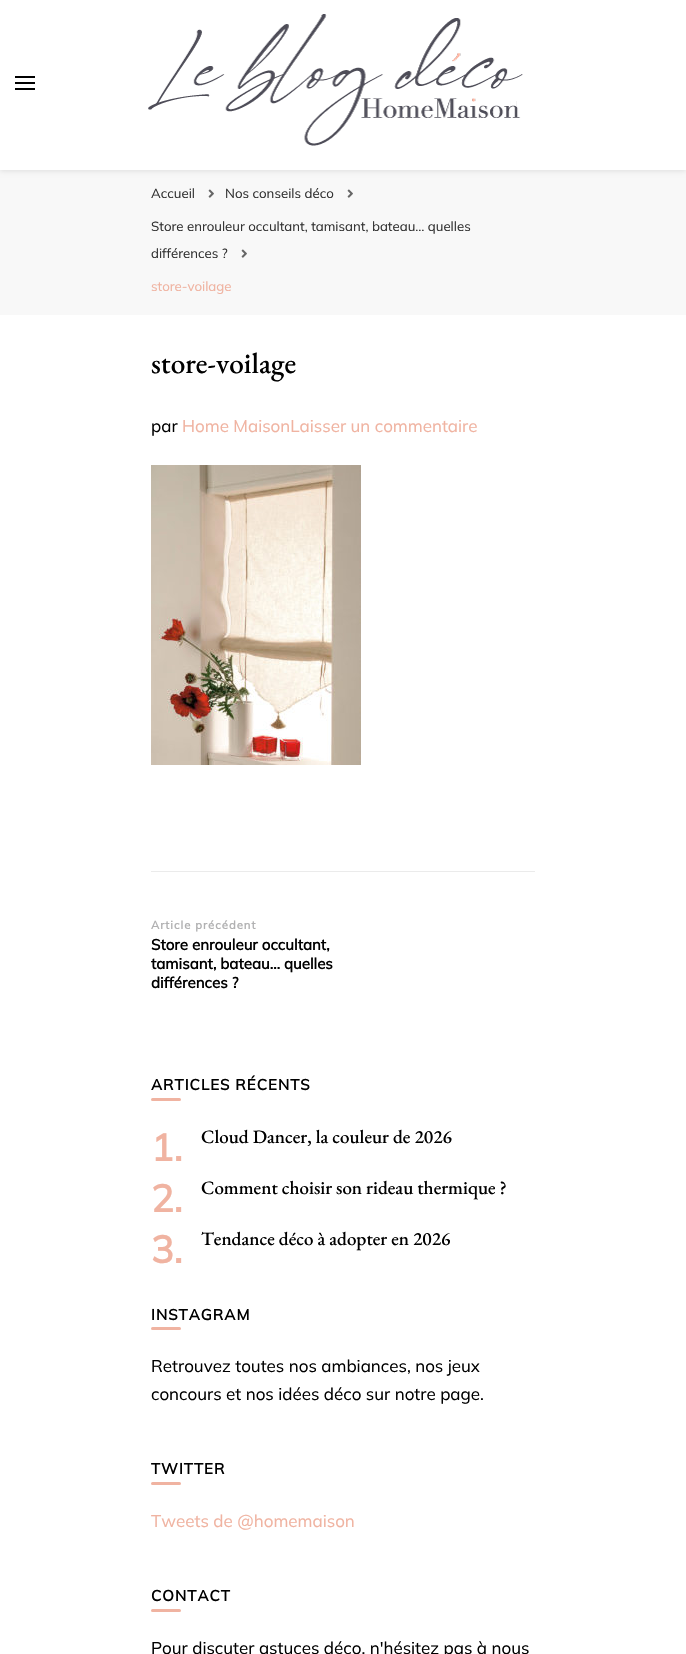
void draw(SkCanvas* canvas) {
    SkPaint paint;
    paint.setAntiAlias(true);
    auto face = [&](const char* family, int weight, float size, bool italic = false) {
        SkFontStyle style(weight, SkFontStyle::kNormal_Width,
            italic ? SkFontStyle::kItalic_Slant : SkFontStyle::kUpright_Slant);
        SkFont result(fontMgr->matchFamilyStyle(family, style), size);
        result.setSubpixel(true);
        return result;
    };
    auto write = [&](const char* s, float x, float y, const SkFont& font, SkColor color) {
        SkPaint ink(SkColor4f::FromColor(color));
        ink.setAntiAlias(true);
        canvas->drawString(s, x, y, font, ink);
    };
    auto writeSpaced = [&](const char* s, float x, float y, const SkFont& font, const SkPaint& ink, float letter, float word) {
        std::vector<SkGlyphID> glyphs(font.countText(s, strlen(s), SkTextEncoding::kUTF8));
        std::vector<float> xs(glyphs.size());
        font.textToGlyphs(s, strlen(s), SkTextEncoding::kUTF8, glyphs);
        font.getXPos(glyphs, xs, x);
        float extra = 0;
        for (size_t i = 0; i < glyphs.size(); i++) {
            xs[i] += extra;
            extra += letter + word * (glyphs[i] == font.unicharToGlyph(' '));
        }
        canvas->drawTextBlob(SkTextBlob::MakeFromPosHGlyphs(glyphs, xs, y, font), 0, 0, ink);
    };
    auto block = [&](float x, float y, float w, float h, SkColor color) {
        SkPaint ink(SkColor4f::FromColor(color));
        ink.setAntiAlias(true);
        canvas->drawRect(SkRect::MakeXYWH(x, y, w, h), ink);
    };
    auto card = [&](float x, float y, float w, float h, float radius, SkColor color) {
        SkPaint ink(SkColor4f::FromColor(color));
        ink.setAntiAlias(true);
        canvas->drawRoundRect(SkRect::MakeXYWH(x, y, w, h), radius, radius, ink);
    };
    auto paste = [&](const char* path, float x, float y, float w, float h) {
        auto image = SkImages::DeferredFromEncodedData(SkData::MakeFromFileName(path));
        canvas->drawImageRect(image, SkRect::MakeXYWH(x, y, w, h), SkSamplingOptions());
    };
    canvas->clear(SkColorSetRGB(248, 248, 248));
    paint.setColor(SkColorSetARGB(26, 0, 0, 0));
    paint.setMaskFilter(SkMaskFilter::MakeBlur(kNormal_SkBlurStyle, 2.5f));
    canvas->drawRect(SkRect::MakeXYWH(0, -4, 686, 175), paint);
    paint.setMaskFilter(nullptr);
    block(0, 0, 686, 170, SK_ColorWHITE);
    block(15, 76, 20, 2, SK_ColorBLACK);
    block(15, 82, 20, 2, SK_ColorBLACK);
    block(15, 88, 20, 2, SK_ColorBLACK);
    paste("pic1.png", 148, 14, 375, 132);
    auto kFont1 = face("Mulish", 200, 13.25f);
    write("Accueil", 151, 198, kFont1, SkColorSetRGB(51, 51, 51));
    paste("pic2.png", 208, 189, 6, 9);
    write("Nos conseils déco", 225, 198, kFont1, SkColorSetRGB(51, 51, 51));
    paste("pic2.png", 347, 189, 6, 9);
    write("Store enrouleur occultant, tamisant, bateau… quelles", 151, 231, kFont1, SkColorSetRGB(51, 51, 51));
    write("différences ?", 151, 258, kFont1, SkColorSetRGB(51, 51, 51));
    paste("pic2.png", 241, 249, 6, 9);
    write("store-voilage", 151, 291, kFont1, SkColorSetRGB(240, 179, 161));
    block(0, 315, 686, 1339, SK_ColorWHITE);
    auto kFont2 = face("EB Garamond", 500, 29.25f);
    write("store-voilage", 151, 373, kFont2, SK_ColorBLACK);
    auto kFont3 = face("Mulish", 200, 17);
    write("par", 151, 432, kFont3, SK_ColorBLACK);
    write("Home MaisonLaisser un commentaire", 182, 432, kFont3, SkColorSetRGB(240, 179, 161));
    paste("pic3.png", 151, 465, 210, 300);
    block(151, 871, 384, 1, SkColorSetRGB(235, 235, 235));
    auto kFont4 = face("Mulish", 700, 11.25f);
    paint.setColor(SkColorSetRGB(177, 177, 178));
    writeSpaced("Article précédent", 151, 929, kFont4, paint, 1, 0);
    auto kFont5 = face("Mulish", 700, 15.1f);
    write("Store enrouleur occultant,", 151, 950, kFont5, SK_ColorBLACK);
    write("tamisant, bateau… quelles", 151, 969, kFont5, SK_ColorBLACK);
    write("différences ?", 151, 988, kFont5, SK_ColorBLACK);
    paint.setColor(SK_ColorBLACK);
    writeSpaced("ARTICLES RÉCENTS", 151, 1090, kFont5, paint, 1, 0);
    card(151, 1098, 30, 3, 1.5f, SkColorSetRGB(240, 179, 161));
    auto kFont6 = face("Mulish", 700, 38);
    write("1.", 151, 1161, kFont6, SkColorSetRGB(240, 179, 161));
    auto kFont7 = face("EB Garamond", 500, 18.9f);
    write("Cloud Dancer, la couleur de 2026", 201, 1143, kFont7, SK_ColorBLACK);
    write("2.", 151, 1212, kFont6, SkColorSetRGB(240, 179, 161));
    write("Comment choisir son rideau thermique ?", 201, 1194, kFont7, SK_ColorBLACK);
    write("3.", 151, 1263, kFont6, SkColorSetRGB(240, 179, 161));
    write("Tendance déco à adopter en 2026", 201, 1245, kFont7, SK_ColorBLACK);
    writeSpaced("INSTAGRAM", 151, 1320, kFont5, paint, 1, 0);
    card(151, 1327, 30, 3, 1.5f, SkColorSetRGB(240, 179, 161));
    write("Retrouvez toutes nos ambiances, nos jeux", 151, 1372, kFont3, SK_ColorBLACK);
    write("concours et nos idées déco sur notre page.", 151, 1400, kFont3, SK_ColorBLACK);
    writeSpaced("TWITTER", 151, 1474, kFont5, paint, 1, 0);
    card(151, 1482, 30, 3, 1.5f, SkColorSetRGB(240, 179, 161));
    write("Tweets de @homemaison", 151, 1527, kFont3, SkColorSetRGB(240, 179, 161));
    writeSpaced("CONTACT", 151, 1601, kFont5, paint, 1, 0);
    card(151, 1609, 30, 3, 1.5f, SkColorSetRGB(240, 179, 161));
    write("Pour discuter astuces déco, n'hésitez pas à nous", 151, 1654, kFont3, SK_ColorBLACK);
}
